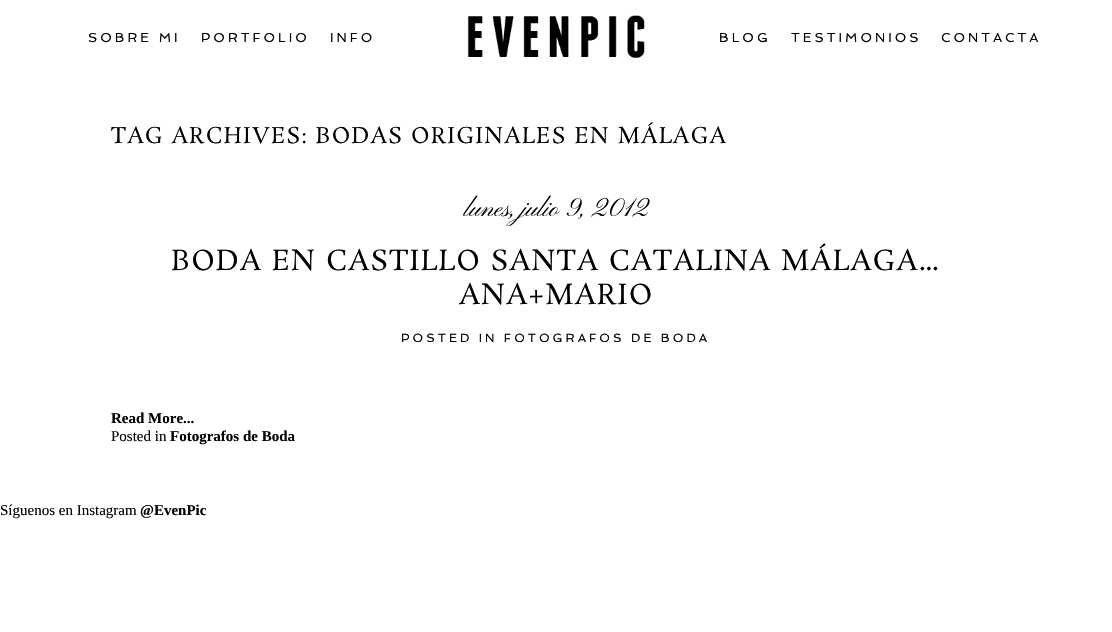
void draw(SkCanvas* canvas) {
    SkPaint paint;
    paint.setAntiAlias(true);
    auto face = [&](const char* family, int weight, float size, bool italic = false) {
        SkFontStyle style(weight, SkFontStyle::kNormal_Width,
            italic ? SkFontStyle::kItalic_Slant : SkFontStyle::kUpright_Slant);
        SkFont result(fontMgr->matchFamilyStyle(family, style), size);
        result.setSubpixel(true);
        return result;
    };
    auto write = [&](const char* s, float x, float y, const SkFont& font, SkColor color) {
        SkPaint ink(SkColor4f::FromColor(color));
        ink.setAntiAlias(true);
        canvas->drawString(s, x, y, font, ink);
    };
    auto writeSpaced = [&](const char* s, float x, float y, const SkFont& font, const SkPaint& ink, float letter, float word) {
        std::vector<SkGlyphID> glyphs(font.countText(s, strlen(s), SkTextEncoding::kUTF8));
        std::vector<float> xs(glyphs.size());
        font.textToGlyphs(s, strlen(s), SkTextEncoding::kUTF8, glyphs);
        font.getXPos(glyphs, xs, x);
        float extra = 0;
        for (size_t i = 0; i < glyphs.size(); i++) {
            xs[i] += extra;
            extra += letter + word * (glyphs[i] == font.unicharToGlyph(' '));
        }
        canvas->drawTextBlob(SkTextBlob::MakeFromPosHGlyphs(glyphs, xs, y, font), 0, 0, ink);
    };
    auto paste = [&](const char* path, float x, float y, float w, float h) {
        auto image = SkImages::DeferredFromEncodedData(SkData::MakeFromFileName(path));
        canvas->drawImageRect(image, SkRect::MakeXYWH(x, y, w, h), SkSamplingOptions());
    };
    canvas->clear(SK_ColorWHITE);
    auto kFont1 = face("Spinnaker", 400, 13);
    paint.setColor(SK_ColorBLACK);
    writeSpaced("SOBRE MI", 88, 42, kFont1, paint, 3, 0);
    writeSpaced("PORTFOLIO", 201, 42, kFont1, paint, 3, 0);
    writeSpaced("INFO", 330, 42, kFont1, paint, 3, 0);
    paste("pic1.png", 467, 15, 178, 43);
    writeSpaced("BLOG", 719, 42, kFont1, paint, 3, 0);
    writeSpaced("TESTIMONIOS", 791, 42, kFont1, paint, 3, 0);
    writeSpaced("CONTACTA", 941, 42, kFont1, paint, 3, 0);
    auto kFont2 = face("Rosarivo", 400, 22);
    writeSpaced("TAG ARCHIVES: BODAS ORIGINALES EN MÁLAGA", 111, 143, kFont2, paint, 1.1f, 0);
    auto kFont3 = face("Pinyon Script", 400, 26);
    write("lunes, julio 9, 2012", 464, 216, kFont3, SK_ColorBLACK);
    auto kFont4 = face("Rosarivo", 400, 28);
    writeSpaced("BODA EN CASTILLO SANTA CATALINA MÁLAGA…", 171, 270, kFont4, paint, 1.1f, 0);
    writeSpaced("ANA+MARIO", 459, 304, kFont4, paint, 1.1f, 0);
    auto kFont5 = face("Spinnaker", 400, 12);
    writeSpaced("POSTED IN FOTOGRAFOS DE BODA", 401, 342, kFont5, paint, 3, 0);
    auto kFont6 = face("Liberation Serif", 700, 15);
    write("Read More...", 111, 423, kFont6, SK_ColorBLACK);
    auto kFont7 = face("Liberation Serif", 400, 15);
    write("Posted in", 111, 441, kFont7, SK_ColorBLACK);
    write("Fotografos de Boda", 170, 441, kFont6, SK_ColorBLACK);
    write("Síguenos en Instagram", 0, 515, kFont7, SK_ColorBLACK);
    write("@EvenPic", 140, 515, kFont6, SK_ColorBLACK);
}
